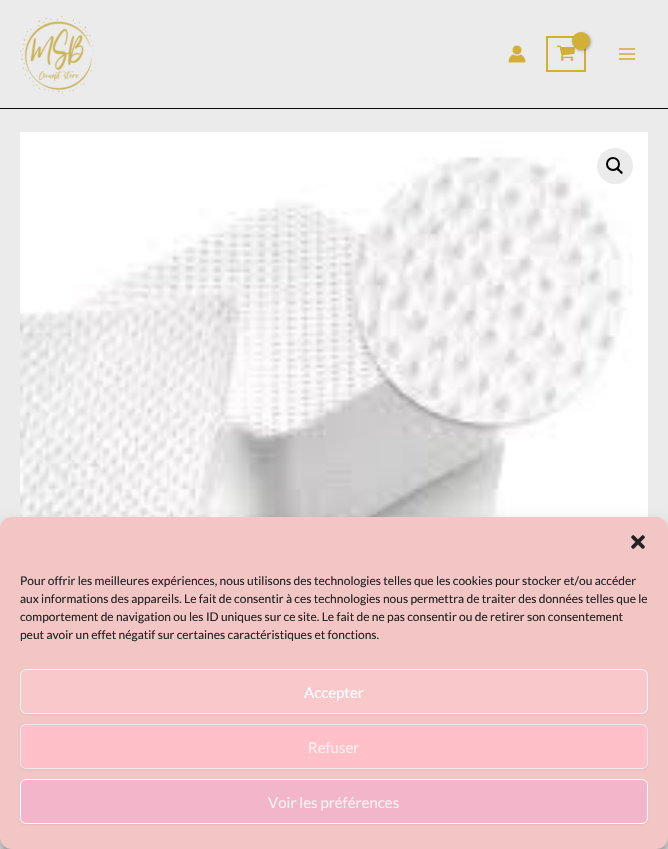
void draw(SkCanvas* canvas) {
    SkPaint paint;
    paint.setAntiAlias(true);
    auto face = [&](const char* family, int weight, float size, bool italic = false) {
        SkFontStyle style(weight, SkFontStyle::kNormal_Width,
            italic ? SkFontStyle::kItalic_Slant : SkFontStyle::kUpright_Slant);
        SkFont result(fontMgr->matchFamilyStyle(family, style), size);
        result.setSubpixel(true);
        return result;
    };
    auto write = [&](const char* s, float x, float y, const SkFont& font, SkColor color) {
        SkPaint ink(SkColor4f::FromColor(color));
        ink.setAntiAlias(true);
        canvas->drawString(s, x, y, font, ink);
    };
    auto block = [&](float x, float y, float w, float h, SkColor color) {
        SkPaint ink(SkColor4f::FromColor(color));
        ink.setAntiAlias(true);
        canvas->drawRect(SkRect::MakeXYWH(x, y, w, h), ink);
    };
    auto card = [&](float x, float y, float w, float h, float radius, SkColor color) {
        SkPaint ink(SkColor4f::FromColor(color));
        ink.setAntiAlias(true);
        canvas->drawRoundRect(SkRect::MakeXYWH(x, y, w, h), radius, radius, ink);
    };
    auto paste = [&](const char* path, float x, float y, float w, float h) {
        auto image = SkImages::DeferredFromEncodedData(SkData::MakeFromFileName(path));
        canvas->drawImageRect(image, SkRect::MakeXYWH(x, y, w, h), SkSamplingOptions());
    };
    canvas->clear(SkColorSetRGB(235, 235, 235));
    block(0, 108, 668, 1, SkColorSetRGB(11, 8, 8));
    paste("pic1.png", 20, 16, 76, 77);
    paste("pic2.png", 508, 45, 18, 18);
    paint.setStyle(SkPaint::kStroke_Style);
    paint.setStrokeWidth(2);
    paint.setColor(SkColorSetRGB(212, 175, 55));
    canvas->drawRect(SkRect::MakeXYWH(547, 37, 38, 34), paint);
    paste("pic3.png", 556, 45, 19, 16);
    paint.setStyle(SkPaint::kFill_Style);
    paint.setColor(SkColorSetARGB(77, 0, 0, 0));
    paint.setMaskFilter(SkMaskFilter::MakeBlur(kNormal_SkBlurStyle, 1.5f));
    canvas->drawRoundRect(SkRect::MakeXYWH(573, 33, 18, 18), 9, 9, paint);
    paint.setMaskFilter(nullptr);
    paint.setColor(SkColorSetRGB(212, 175, 55));
    canvas->drawCircle(581, 41, 9, paint);
    paste("pic4.png", 618, 48, 18, 12);
    paste("pic5.png", 20, 132, 628, 385);
    paint.setColor(SkColorSetRGB(235, 235, 235));
    canvas->drawCircle(615, 166, 18, paint);
    paint.setStyle(SkPaint::kStroke_Style);
    paint.setColor(SK_ColorBLACK);
    canvas->drawCircle(613, 164, 6, paint);
    paint.setStyle(SkPaint::kFill_Style);
    canvas->drawPath(SkPathBuilder().moveTo(616.5f, 168).cubicTo(618, 166.5f, 619.5f, 169.5f, 620, 170).cubicTo(621, 170.5f, 623.5f, 172.5f, 622.5f, 173.5f).cubicTo(621, 175, 619.5f, 172, 619, 171.5f).cubicTo(618, 171, 615.5f, 169, 616.5f, 168).close().detach(), paint);
    paint.setColor(SkColorSetARGB(59, 0, 0, 0));
    paint.setMaskFilter(SkMaskFilter::MakeBlur(kNormal_SkBlurStyle, 3));
    canvas->drawRoundRect(SkRect::MakeXYWH(0, 523, 668, 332), 12, 12, paint);
    paint.setMaskFilter(nullptr);
    paint.setColor(SkColorSetARGB(48, 0, 0, 0));
    paint.setMaskFilter(SkMaskFilter::MakeBlur(kNormal_SkBlurStyle, 10));
    canvas->drawRoundRect(SkRect::MakeXYWH(0, 527, 668, 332), 12, 12, paint);
    paint.setMaskFilter(nullptr);
    card(0, 517, 668, 332, 12, SkColorSetRGB(243, 198, 198));
    paste("pic6.png", 631, 535, 14, 14);
    auto kFont1 = face("Lato", 400, 12);
    write("Pour offrir les meilleures expériences, nous utilisons des technologies telles que les cookies pour stocker et/ou accéder", 20, 585, kFont1, SkColorSetRGB(34, 34, 34));
    write("aux informations des appareils. Le fait de consentir à ces technologies nous permettra de traiter des données telles que le", 20, 603, kFont1, SkColorSetRGB(34, 34, 34));
    write("comportement de navigation ou les ID uniques sur ce site. Le fait de ne pas consentir ou de retirer son consentement", 20, 621, kFont1, SkColorSetRGB(34, 34, 34));
    write("peut avoir un effet négatif sur certaines caractéristiques et fonctions.", 20, 639, kFont1, SkColorSetRGB(34, 34, 34));
    paint.setColor(SkColorSetARGB(13, 0, 0, 0));
    paint.setMaskFilter(SkMaskFilter::MakeBlur(kNormal_SkBlurStyle, 1));
    canvas->drawRoundRect(SkRect::MakeXYWH(20, 670, 628, 45), 6, 6, paint);
    paint.setMaskFilter(nullptr);
    paint.setColor(SkColorSetRGB(249, 200, 202));
    canvas->drawRoundRect(SkRect::MakeXYWH(20.5f, 669.5f, 627, 44), 5.5f, 5.5f, paint);
    paint.setStyle(SkPaint::kStroke_Style);
    paint.setStrokeWidth(1);
    paint.setColor(SkColorSetRGB(247, 245, 245));
    canvas->drawRoundRect(SkRect::MakeXYWH(20.5f, 669.5f, 627, 44), 5.5f, 5.5f, paint);
    auto kFont2 = face("Lato", 400, 15);
    write("Accepter", 304, 698, kFont2, SK_ColorWHITE);
    paint.setStyle(SkPaint::kFill_Style);
    paint.setColor(SkColorSetARGB(13, 0, 0, 0));
    paint.setMaskFilter(SkMaskFilter::MakeBlur(kNormal_SkBlurStyle, 1));
    canvas->drawRoundRect(SkRect::MakeXYWH(20, 725, 628, 45), 6, 6, paint);
    paint.setMaskFilter(nullptr);
    paint.setColor(SkColorSetRGB(255, 192, 202));
    canvas->drawRoundRect(SkRect::MakeXYWH(20.5f, 724.5f, 627, 44), 5.5f, 5.5f, paint);
    paint.setStyle(SkPaint::kStroke_Style);
    paint.setColor(SkColorSetRGB(240, 232, 241));
    canvas->drawRoundRect(SkRect::MakeXYWH(20.5f, 724.5f, 627, 44), 5.5f, 5.5f, paint);
    write("Refuser", 308, 753, kFont2, SkColorSetRGB(249, 240, 240));
    paint.setStyle(SkPaint::kFill_Style);
    paint.setColor(SkColorSetARGB(13, 0, 0, 0));
    paint.setMaskFilter(SkMaskFilter::MakeBlur(kNormal_SkBlurStyle, 1));
    canvas->drawRoundRect(SkRect::MakeXYWH(20, 780, 628, 45), 6, 6, paint);
    paint.setMaskFilter(nullptr);
    paint.setColor(SkColorSetRGB(243, 181, 202));
    canvas->drawRoundRect(SkRect::MakeXYWH(20.5f, 779.5f, 627, 44), 5.5f, 5.5f, paint);
    paint.setStyle(SkPaint::kStroke_Style);
    paint.setColor(SK_ColorWHITE);
    canvas->drawRoundRect(SkRect::MakeXYWH(20.5f, 779.5f, 627, 44), 5.5f, 5.5f, paint);
    write("Voir les préférences", 268, 808, kFont2, SkColorSetRGB(243, 243, 243));
}
